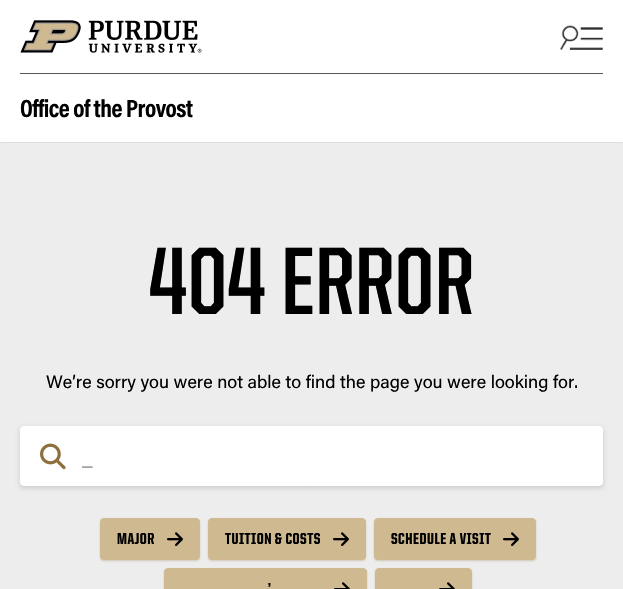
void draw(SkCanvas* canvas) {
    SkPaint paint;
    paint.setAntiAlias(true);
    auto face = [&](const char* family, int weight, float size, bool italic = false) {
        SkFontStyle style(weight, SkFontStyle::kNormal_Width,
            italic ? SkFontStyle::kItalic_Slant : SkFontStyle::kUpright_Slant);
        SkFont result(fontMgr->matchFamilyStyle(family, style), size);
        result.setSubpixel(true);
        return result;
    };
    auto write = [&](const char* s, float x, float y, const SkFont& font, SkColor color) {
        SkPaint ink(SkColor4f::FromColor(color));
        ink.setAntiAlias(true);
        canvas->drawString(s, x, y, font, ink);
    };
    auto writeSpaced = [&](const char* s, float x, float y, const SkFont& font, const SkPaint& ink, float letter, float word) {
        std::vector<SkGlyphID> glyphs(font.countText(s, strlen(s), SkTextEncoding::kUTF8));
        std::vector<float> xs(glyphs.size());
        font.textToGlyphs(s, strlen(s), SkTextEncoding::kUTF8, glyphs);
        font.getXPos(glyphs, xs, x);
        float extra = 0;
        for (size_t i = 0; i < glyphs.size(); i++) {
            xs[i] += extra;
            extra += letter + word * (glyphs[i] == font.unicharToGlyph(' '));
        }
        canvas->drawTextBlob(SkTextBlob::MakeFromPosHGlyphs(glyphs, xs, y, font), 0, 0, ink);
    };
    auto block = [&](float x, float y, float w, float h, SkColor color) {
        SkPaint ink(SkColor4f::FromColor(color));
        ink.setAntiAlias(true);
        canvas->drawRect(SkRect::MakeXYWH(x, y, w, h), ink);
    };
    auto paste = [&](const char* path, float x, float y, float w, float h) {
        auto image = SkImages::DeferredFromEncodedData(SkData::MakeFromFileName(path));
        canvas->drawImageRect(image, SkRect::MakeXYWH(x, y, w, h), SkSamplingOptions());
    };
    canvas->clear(SK_ColorWHITE);
    block(0, 142, 623, 447, SkColorSetRGB(237, 237, 237));
    canvas->save();
    canvas->clipRect(SkRect::MakeXYWH(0, 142, 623, 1));
    paint.setColor(SkColorSetARGB(51, 0, 0, 0));
    paint.setMaskFilter(SkMaskFilter::MakeBlur(kNormal_SkBlurStyle, 1));
    canvas->drawRect(SkRect::MakeXYWH(0, 0, 623, 142), paint);
    paint.setMaskFilter(nullptr);
    canvas->restore();
    paste("pic1.png", 560, 25, 43, 25);
    block(20, 73, 583, 1, SkColorSetRGB(85, 89, 96));
    paste("pic2.png", 20, 20, 182, 33);
    auto kFont1 = face("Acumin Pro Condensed", 700, 25);
    paint.setColor(SK_ColorBLACK);
    writeSpaced("Office of the Provost", 20, 117, kFont1, paint, -0.5f, 0);
    auto kFont2 = face("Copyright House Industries", 600, 96);
    write("404 ERROR", 149, 314, kFont2, SK_ColorBLACK);
    auto kFont3 = face("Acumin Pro", 400, 18);
    write("We’re sorry you were not able to find the page you were looking for.", 46, 388, kFont3, SK_ColorBLACK);
    paint.setColor(SkColorSetARGB(38, 0, 0, 0));
    paint.setMaskFilter(SkMaskFilter::MakeBlur(kNormal_SkBlurStyle, 2.5f));
    canvas->drawRoundRect(SkRect::MakeXYWH(20, 428, 583, 60), 4, 4, paint);
    paint.setMaskFilter(nullptr);
    paint.setColor(SK_ColorWHITE);
    canvas->drawRoundRect(SkRect::MakeXYWH(20.5f, 426.5f, 582, 59), 3.5f, 3.5f, paint);
    paint.setStyle(SkPaint::kStroke_Style);
    paint.setStrokeWidth(1);
    canvas->drawRoundRect(SkRect::MakeXYWH(20.5f, 426.5f, 582, 59), 3.5f, 3.5f, paint);
    paste("pic3.png", 40, 443, 26, 27);
    auto kFont4 = face("Acumin Pro", 400, 20);
    write("_", 82, 465, kFont4, SkColorSetRGB(117, 117, 117));
    paint.setStyle(SkPaint::kFill_Style);
    paint.setColor(SkColorSetARGB(77, 142, 111, 62));
    paint.setMaskFilter(SkMaskFilter::MakeBlur(kNormal_SkBlurStyle, 1));
    canvas->drawRoundRect(SkRect::MakeXYWH(100, 519, 100, 42), 4, 4, paint);
    paint.setMaskFilter(nullptr);
    paint.setColor(SkColorSetRGB(207, 185, 145));
    canvas->drawRoundRect(SkRect::MakeXYWH(100.5f, 518.5f, 99, 41), 3.5f, 3.5f, paint);
    paint.setStyle(SkPaint::kStroke_Style);
    canvas->drawRoundRect(SkRect::MakeXYWH(100.5f, 518.5f, 99, 41), 3.5f, 3.5f, paint);
    auto kFont5 = face("Copyright House Industries", 700, 16);
    paint.setStyle(SkPaint::kFill_Style);
    paint.setColor(SK_ColorBLACK);
    writeSpaced("MAJOR", 117, 544, kFont5, paint, 0.5f, 0);
    paste("pic4.png", 167, 532, 16, 14);
    paint.setColor(SkColorSetARGB(77, 142, 111, 62));
    paint.setMaskFilter(SkMaskFilter::MakeBlur(kNormal_SkBlurStyle, 1));
    canvas->drawRoundRect(SkRect::MakeXYWH(208, 519, 158, 42), 4, 4, paint);
    paint.setMaskFilter(nullptr);
    paint.setColor(SkColorSetRGB(207, 185, 145));
    canvas->drawRoundRect(SkRect::MakeXYWH(208.5f, 518.5f, 157, 41), 3.5f, 3.5f, paint);
    paint.setStyle(SkPaint::kStroke_Style);
    canvas->drawRoundRect(SkRect::MakeXYWH(208.5f, 518.5f, 157, 41), 3.5f, 3.5f, paint);
    paint.setStyle(SkPaint::kFill_Style);
    paint.setColor(SK_ColorBLACK);
    writeSpaced("TUITION & COSTS", 225, 544, kFont5, paint, 0.5f, 0);
    paste("pic4.png", 333, 532, 16, 14);
    paint.setColor(SkColorSetARGB(77, 142, 111, 62));
    paint.setMaskFilter(SkMaskFilter::MakeBlur(kNormal_SkBlurStyle, 1));
    canvas->drawRoundRect(SkRect::MakeXYWH(374, 519, 162, 42), 4, 4, paint);
    paint.setMaskFilter(nullptr);
    paint.setColor(SkColorSetRGB(207, 185, 145));
    canvas->drawRoundRect(SkRect::MakeXYWH(374.5f, 518.5f, 161, 41), 3.5f, 3.5f, paint);
    paint.setStyle(SkPaint::kStroke_Style);
    canvas->drawRoundRect(SkRect::MakeXYWH(374.5f, 518.5f, 161, 41), 3.5f, 3.5f, paint);
    paint.setStyle(SkPaint::kFill_Style);
    paint.setColor(SK_ColorBLACK);
    writeSpaced("SCHEDULE A VISIT", 391, 544, kFont5, paint, 0.5f, 0);
    paste("pic4.png", 503, 532, 16, 14);
    paint.setColor(SkColorSetARGB(77, 142, 111, 62));
    paint.setMaskFilter(SkMaskFilter::MakeBlur(kNormal_SkBlurStyle, 1));
    canvas->drawRoundRect(SkRect::MakeXYWH(164, 569, 203, 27), 4, 4, paint);
    paint.setMaskFilter(nullptr);
    paint.setColor(SkColorSetRGB(207, 185, 145));
    canvas->drawRoundRect(SkRect::MakeXYWH(164.5f, 568.5f, 202, 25), 3.5f, 3.5f, paint);
    paint.setStyle(SkPaint::kStroke_Style);
    canvas->drawRoundRect(SkRect::MakeXYWH(164.5f, 568.5f, 202, 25), 3.5f, 3.5f, paint);
    paint.setStyle(SkPaint::kFill_Style);
    paint.setColor(SK_ColorBLACK);
    writeSpaced("’", 268, 594, kFont5, paint, 0.5f, 0);
    paste("pic5.png", 334, 582, 16, 7);
    paint.setColor(SkColorSetARGB(77, 142, 111, 62));
    paint.setMaskFilter(SkMaskFilter::MakeBlur(kNormal_SkBlurStyle, 1));
    canvas->drawRoundRect(SkRect::MakeXYWH(375, 569, 97, 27), 4, 4, paint);
    paint.setMaskFilter(nullptr);
    paint.setColor(SkColorSetRGB(207, 185, 145));
    canvas->drawRoundRect(SkRect::MakeXYWH(375.5f, 568.5f, 96, 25), 3.5f, 3.5f, paint);
    paint.setStyle(SkPaint::kStroke_Style);
    canvas->drawRoundRect(SkRect::MakeXYWH(375.5f, 568.5f, 96, 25), 3.5f, 3.5f, paint);
    paste("pic5.png", 439, 582, 16, 7);
}
